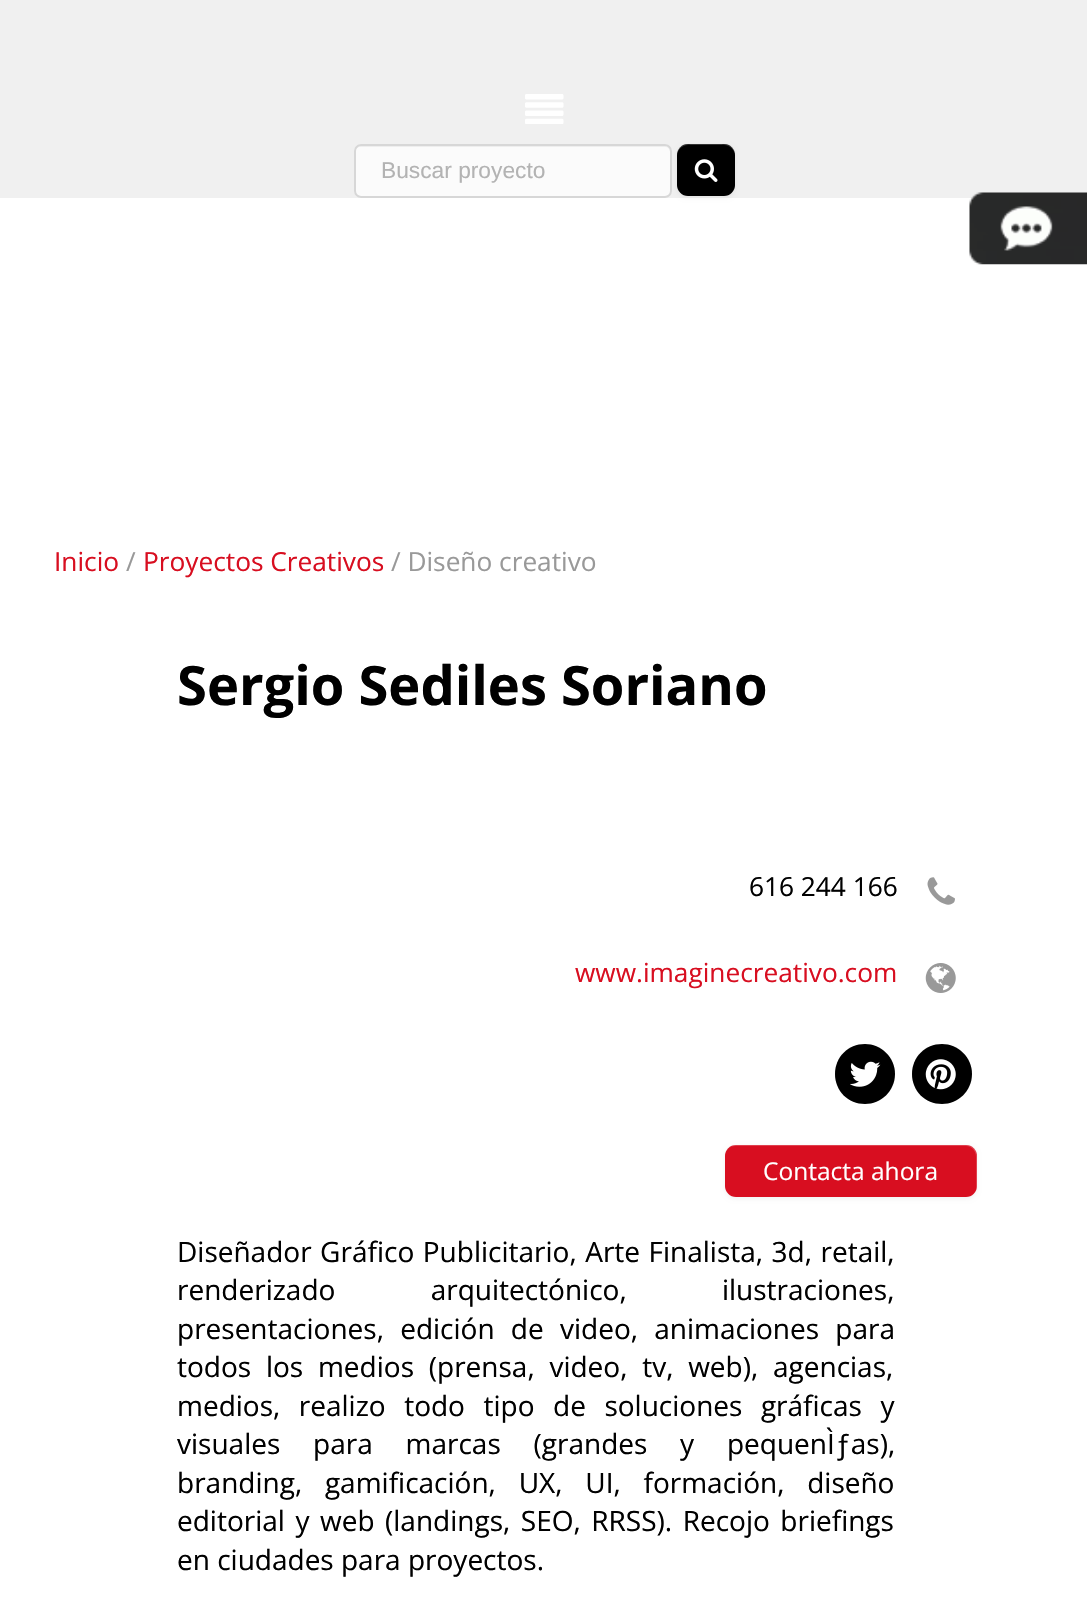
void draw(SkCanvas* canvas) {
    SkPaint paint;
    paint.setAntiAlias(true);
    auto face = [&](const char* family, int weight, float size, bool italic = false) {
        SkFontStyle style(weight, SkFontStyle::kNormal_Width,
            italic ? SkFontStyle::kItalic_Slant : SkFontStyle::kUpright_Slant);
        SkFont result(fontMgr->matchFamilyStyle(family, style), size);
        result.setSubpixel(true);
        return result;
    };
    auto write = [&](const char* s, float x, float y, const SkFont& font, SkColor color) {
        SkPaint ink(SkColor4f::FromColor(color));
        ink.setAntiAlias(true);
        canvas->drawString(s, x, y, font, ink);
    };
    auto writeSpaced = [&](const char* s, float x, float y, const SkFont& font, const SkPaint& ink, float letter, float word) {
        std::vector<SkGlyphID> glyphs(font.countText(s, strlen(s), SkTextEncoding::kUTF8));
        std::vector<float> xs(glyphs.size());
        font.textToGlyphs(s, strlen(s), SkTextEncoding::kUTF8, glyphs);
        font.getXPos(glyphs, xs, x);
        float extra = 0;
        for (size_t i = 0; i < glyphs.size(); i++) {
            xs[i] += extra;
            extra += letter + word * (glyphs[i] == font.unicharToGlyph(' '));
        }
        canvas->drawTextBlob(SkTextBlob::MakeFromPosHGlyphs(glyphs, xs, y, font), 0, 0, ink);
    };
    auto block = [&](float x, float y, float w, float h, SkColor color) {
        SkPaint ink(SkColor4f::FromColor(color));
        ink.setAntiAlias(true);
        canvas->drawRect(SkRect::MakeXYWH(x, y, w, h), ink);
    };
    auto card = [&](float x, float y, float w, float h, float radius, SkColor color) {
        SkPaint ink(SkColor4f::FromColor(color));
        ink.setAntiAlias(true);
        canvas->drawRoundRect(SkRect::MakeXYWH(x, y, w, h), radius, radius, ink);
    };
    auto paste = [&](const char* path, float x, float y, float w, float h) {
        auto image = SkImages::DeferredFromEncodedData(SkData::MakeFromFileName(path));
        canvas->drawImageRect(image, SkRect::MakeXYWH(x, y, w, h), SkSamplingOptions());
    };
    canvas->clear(SK_ColorWHITE);
    block(0, 0, 1087, 198, SkColorSetRGB(240, 240, 240));
    paste("pic1.png", 525, 94, 39, 30);
    paint.setColor(SkColorSetARGB(13, 0, 0, 0));
    paint.setMaskFilter(SkMaskFilter::MakeBlur(kNormal_SkBlurStyle, 2));
    canvas->drawRoundRect(SkRect::MakeXYWH(677, 145, 58, 53), 11, 11, paint);
    paint.setMaskFilter(nullptr);
    card(354, 144, 318, 54, 7, SkColorSetRGB(251, 251, 251));
    paint.setColor(SkColorSetRGB(238, 238, 238));
    canvas->drawPath(SkPathBuilder().moveTo(360, 147).lineTo(665, 147).cubicTo(668, 147, 670, 149, 670, 152).lineTo(670, 150).cubicTo(670, 147, 668, 145, 665, 145).lineTo(360, 145).cubicTo(357, 145, 355, 147, 355, 150).lineTo(355, 152).cubicTo(355, 149, 358, 147, 360, 147).close().detach(), paint);
    paint.setStyle(SkPaint::kStroke_Style);
    paint.setStrokeWidth(2);
    paint.setColor(SkColorSetRGB(215, 215, 215));
    canvas->drawRoundRect(SkRect::MakeXYWH(355, 145, 316, 52), 6, 6, paint);
    auto kFont1 = face("Liberation Sans", 400, 22.75f);
    write("Buscar proyecto", 381, 178, kFont1, SkColorSetRGB(179, 179, 179));
    card(677, 144, 58, 52, 11, SK_ColorBLACK);
    paint.setStyle(SkPaint::kFill_Style);
    paint.setColor(SkColorSetARGB(51, 255, 255, 255));
    canvas->drawPath(SkPathBuilder().moveTo(688, 145).lineTo(724, 145).cubicTo(730, 145, 735, 150, 735, 156).cubicTo(735, 145, 727, 144, 718, 144).lineTo(694, 144).cubicTo(685, 144, 677, 145, 677, 156).cubicTo(677, 150, 682, 145, 688, 145).close().detach(), paint);
    paste("pic2.png", 694, 159, 24, 23);
    paste("pic3.png", 969, 192, 118, 73);
    auto kFont2 = face("Open Sans", 400, 26.25f);
    write("Inicio", 54, 571, kFont2, SkColorSetRGB(216, 14, 32));
    write("/", 126, 571, kFont2, SkColorSetRGB(153, 153, 153));
    write("Proyectos Creativos", 143, 571, kFont2, SkColorSetRGB(216, 14, 32));
    write("/ Diseño creativo", 391, 571, kFont2, SkColorSetRGB(153, 153, 153));
    auto kFont3 = face("Open Sans", 700, 54.25f);
    write("Sergio Sediles Soriano", 177, 705, kFont3, SK_ColorBLACK);
    write("616 244 166", 749, 896, kFont2, SK_ColorBLACK);
    paste("pic4.png", 927, 877, 28, 28);
    write("www.imaginecreativo.com", 575, 982, kFont2, SkColorSetRGB(216, 14, 32));
    paste("pic5.png", 925, 963, 31, 30);
    paint.setColor(SK_ColorBLACK);
    canvas->drawPath(SkPathBuilder().moveTo(895, 1074).cubicTo(895, 1057, 881, 1044, 865, 1044).cubicTo(848, 1044, 835, 1057, 835, 1074).cubicTo(835, 1091, 848, 1104, 865, 1104).cubicTo(881, 1104, 895, 1091, 895, 1074).close().detach(), paint);
    paste("pic6.png", 850, 1061, 31, 26);
    canvas->drawPath(SkPathBuilder().moveTo(972, 1074).cubicTo(972, 1057, 958, 1044, 942, 1044).cubicTo(925, 1044, 912, 1057, 912, 1074).cubicTo(912, 1091, 925, 1104, 942, 1104).cubicTo(958, 1104, 972, 1091, 972, 1074).close().detach(), paint);
    paste("pic7.png", 925, 1059, 31, 31);
    paint.setColor(SkColorSetARGB(13, 0, 0, 0));
    paint.setMaskFilter(SkMaskFilter::MakeBlur(kNormal_SkBlurStyle, 2));
    canvas->drawRoundRect(SkRect::MakeXYWH(725, 1146, 252, 53), 11, 11, paint);
    paint.setMaskFilter(nullptr);
    card(725, 1145, 252, 52, 11, SkColorSetRGB(216, 14, 32));
    paint.setColor(SkColorSetARGB(51, 255, 255, 255));
    canvas->drawPath(SkPathBuilder().moveTo(735, 1146).lineTo(966, 1146).cubicTo(972, 1146, 976, 1151, 976, 1157).lineTo(976, 1188).lineTo(976, 1192).cubicTo(976, 1190, 977, 1188, 977, 1186).lineTo(977, 1156).cubicTo(977, 1150, 972, 1145, 966, 1145).lineTo(736, 1145).cubicTo(733, 1145, 730, 1147, 728, 1149).cubicTo(730, 1147, 732, 1146, 735, 1146).close().detach(), paint);
    auto kFont4 = face("Open Sans", 400, 24.5f);
    write("Contacta ahora", 763, 1180, kFont4, SK_ColorWHITE);
    auto kFont5 = face("Open Sans", 400, 28);
    paint.setColor(SK_ColorBLACK);
    writeSpaced("Diseñador Gráfico Publicitario, Arte Finalista, 3d, retail,", 177, 1262, kFont5, paint, 0, 1.25f);
    writeSpaced("renderizado arquitectónico, ilustraciones,", 177, 1300, kFont5, paint, 0, 88);
    writeSpaced("presentaciones, edición de video, animaciones para", 177, 1339, kFont5, paint, 0, 9);
    writeSpaced("todos los medios (prensa, video, tv, web), agencias,", 177, 1377, kFont5, paint, 0, 7.5f);
    writeSpaced("medios, realizo todo tipo de soluciones gráficas y", 177, 1416, kFont5, paint, 0, 11.25f);
    writeSpaced("visuales para marcas (grandes y pequenÌƒas),", 177, 1454, kFont5, paint, 0, 25.5f);
    writeSpaced("branding, gamificación, UX, UI, formación, diseño", 177, 1493, kFont5, paint, 0, 15.5f);
    writeSpaced("editorial y web (landings, SEO, RRSS). Recojo briefings", 177, 1531, kFont5, paint, 0, 3.25f);
    write("en ciudades para proyectos.", 177, 1570, kFont5, SK_ColorBLACK);
}
